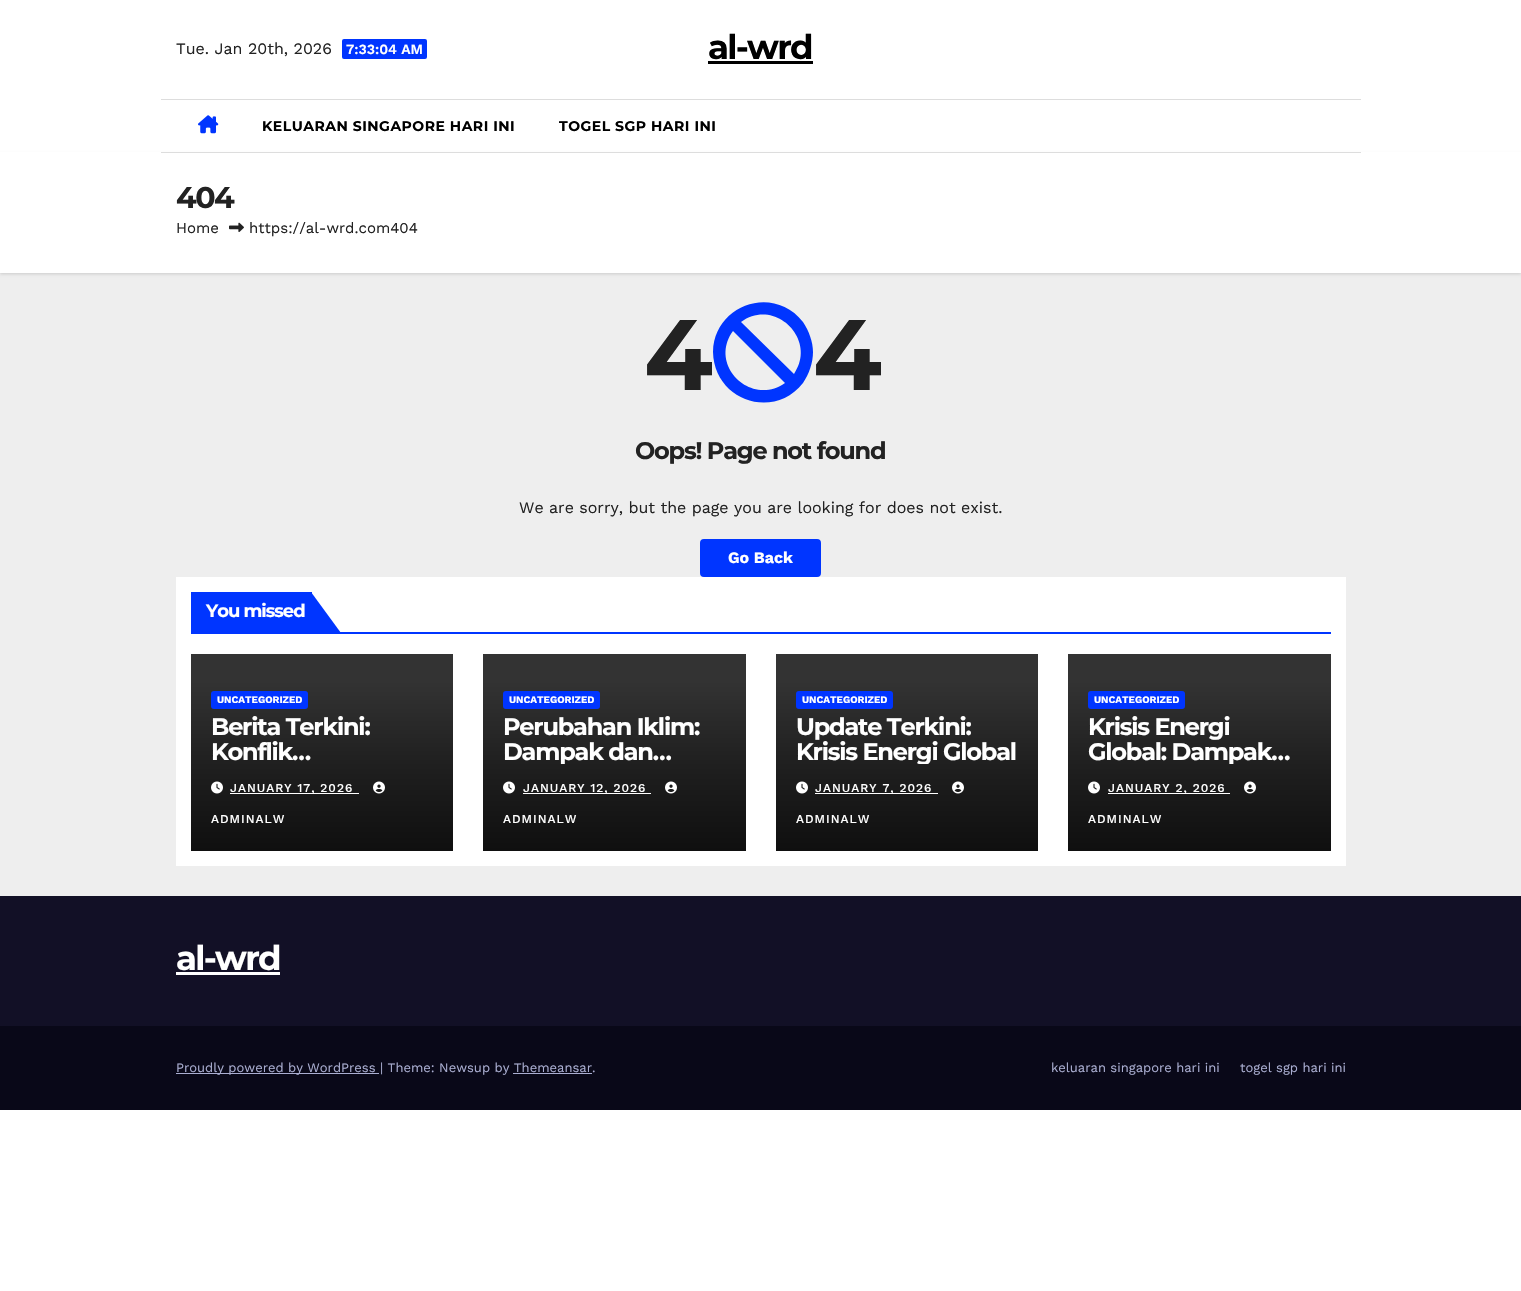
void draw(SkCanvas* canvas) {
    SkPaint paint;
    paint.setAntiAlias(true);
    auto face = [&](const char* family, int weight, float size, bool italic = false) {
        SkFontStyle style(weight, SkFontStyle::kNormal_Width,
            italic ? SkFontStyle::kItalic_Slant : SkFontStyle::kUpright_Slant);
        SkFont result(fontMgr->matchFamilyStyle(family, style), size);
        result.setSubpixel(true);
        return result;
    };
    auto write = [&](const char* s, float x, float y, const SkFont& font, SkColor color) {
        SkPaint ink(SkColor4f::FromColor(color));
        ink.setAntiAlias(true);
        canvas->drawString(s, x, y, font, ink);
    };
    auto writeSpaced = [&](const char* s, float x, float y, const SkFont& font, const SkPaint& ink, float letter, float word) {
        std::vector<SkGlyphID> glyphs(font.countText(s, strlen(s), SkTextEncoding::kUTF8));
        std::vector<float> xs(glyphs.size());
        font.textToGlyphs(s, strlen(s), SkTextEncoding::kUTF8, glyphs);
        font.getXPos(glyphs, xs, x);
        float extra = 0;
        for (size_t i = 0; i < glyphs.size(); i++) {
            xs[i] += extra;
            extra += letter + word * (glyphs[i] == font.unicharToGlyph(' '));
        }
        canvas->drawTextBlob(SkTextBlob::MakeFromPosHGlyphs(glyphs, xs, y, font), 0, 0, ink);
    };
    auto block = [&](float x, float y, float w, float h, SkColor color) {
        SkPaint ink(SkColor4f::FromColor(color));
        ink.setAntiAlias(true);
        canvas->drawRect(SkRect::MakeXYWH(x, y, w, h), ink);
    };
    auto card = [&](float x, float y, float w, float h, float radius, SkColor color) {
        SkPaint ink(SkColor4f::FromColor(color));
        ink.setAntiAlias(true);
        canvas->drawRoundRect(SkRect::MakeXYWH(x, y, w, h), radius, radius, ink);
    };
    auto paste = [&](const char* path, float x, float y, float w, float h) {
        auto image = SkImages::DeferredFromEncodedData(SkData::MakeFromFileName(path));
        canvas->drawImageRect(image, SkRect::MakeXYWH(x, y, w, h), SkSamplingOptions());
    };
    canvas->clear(SK_ColorWHITE);
    block(0, 273, 1521, 623, SkColorSetRGB(238, 238, 238));
    auto kFont1 = face("Work Sans", 400, 16);
    write("Tue. Jan 20th, 2026", 176, 54, kFont1, SkColorSetRGB(34, 34, 34));
    card(342, 39, 85, 20, 2, SkColorSetRGB(0, 53, 255));
    auto kFont2 = face("Work Sans", 600, 14);
    write("7:33:04 AM", 346, 54, kFont2, SK_ColorWHITE);
    auto kFont3 = face("Montserrat", 700, 34);
    paint.setColor(SK_ColorBLACK);
    writeSpaced("al-wrd", 708, 59, kFont3, paint, -1.75f, 0);
    block(708, 61, 105, 3, SK_ColorBLACK);
    block(161, 99, 1200, 1, SkColorSetRGB(221, 221, 221));
    paint.setColor(SkColorSetARGB(38, 0, 0, 0));
    paint.setMaskFilter(SkMaskFilter::MakeBlur(kNormal_SkBlurStyle, 1.5f));
    canvas->drawRect(SkRect::MakeXYWH(0, 154, 1521, 120), paint);
    paint.setMaskFilter(nullptr);
    block(0, 152, 1521, 121, SK_ColorWHITE);
    block(161, 152, 1200, 1, SkColorSetRGB(221, 221, 221));
    paste("pic1.png", 198, 115, 21, 19);
    auto kFont4 = face("Montserrat", 700, 14);
    paint.setColor(SK_ColorBLACK);
    writeSpaced("KELUARAN SINGAPORE HARI INI", 262, 131, kFont4, paint, 0.5f, 0);
    writeSpaced("TOGEL SGP HARI INI", 559, 131, kFont4, paint, 0.5f, 0);
    auto kFont5 = face("Montserrat", 700, 30);
    paint.setColor(SkColorSetRGB(34, 34, 34));
    writeSpaced("404", 176, 208, kFont5, paint, -1.5f, 0);
    auto kFont6 = face("Work Sans", 400, 15);
    write("Home", 176, 233, kFont6, SkColorSetRGB(34, 34, 34));
    paste("pic2.png", 229, 222, 15, 10);
    write("https://al-wrd.com404", 249, 233, kFont6, SkColorSetRGB(34, 34, 34));
    auto kFont7 = face("Montserrat", 700, 100);
    writeSpaced("4", 644, 390, kFont7, paint, -5, 0);
    paint.setColor(SkColorSetRGB(0, 53, 255));
    canvas->drawPath(SkPathBuilder().moveTo(785, 383).lineTo(733, 331).cubicTo(708, 365, 751, 407, 785, 383).close().moveTo(794, 374).cubicTo(818, 340, 775, 297, 741, 322).close().moveTo(713, 352).cubicTo(714, 305, 773, 284, 803, 322).cubicTo(809, 331, 813, 342, 813, 352).cubicTo(813, 363, 809, 374, 803, 383).cubicTo(773, 421, 714, 400, 713, 352).close().detach(), paint);
    paint.setColor(SkColorSetRGB(34, 34, 34));
    writeSpaced("4", 813, 390, kFont7, paint, -5, 0);
    auto kFont8 = face("Montserrat", 700, 24);
    writeSpaced("Oops! Page not found", 635, 459, kFont8, paint, -1.2f, 0);
    write("We are sorry, but the page you are looking for does not exist.", 519, 513, kFont1, SkColorSetRGB(34, 34, 34));
    paint.setColor(SkColorSetRGB(0, 53, 255));
    canvas->drawRoundRect(SkRect::MakeXYWH(701, 540, 119, 36), 3, 3, paint);
    paint.setStyle(SkPaint::kStroke_Style);
    paint.setStrokeWidth(2);
    canvas->drawRoundRect(SkRect::MakeXYWH(701, 540, 119, 36), 3, 3, paint);
    auto kFont9 = face("Work Sans", 700, 16);
    write("Go Back", 728, 563, kFont9, SK_ColorWHITE);
    block(176, 577, 1170, 289, SK_ColorWHITE);
    block(191, 632, 1140, 2, SkColorSetRGB(0, 53, 255));
    block(191, 592, 121, 40, SkColorSetRGB(0, 53, 255));
    auto kFont10 = face("Montserrat", 700, 18);
    paint.setStyle(SkPaint::kFill_Style);
    paint.setColor(SK_ColorWHITE);
    writeSpaced("You missed", 206, 617, kFont10, paint, -1, 0);
    paint.setColor(SkColorSetRGB(0, 53, 255));
    canvas->drawPath(SkPathBuilder().moveTo(311, 592).lineTo(341, 633).lineTo(311, 633).close().detach(), paint);
    block(191, 654, 262, 27, SkColorSetRGB(51, 51, 51));
    {
        const SkColor colors[] = {SkColorSetRGB(51, 51, 51), SkColorSetRGB(31, 31, 31), SkColorSetRGB(15, 15, 15)};
        const float stops[] = {0, 0.5f, 1};
        const SkPoint ends[] = {{322, 681}, {322, 851}};
        paint.setShader(SkGradientShader::MakeLinear(ends, colors, stops, 3, SkTileMode::kClamp));
        paint.setAlpha(255);
    }
    canvas->drawRect(SkRect::MakeXYWH(191, 681, 262, 170), paint);
    card(211, 691, 97, 18, 3, SkColorSetRGB(0, 53, 255));
    auto kFont11 = face("Work Sans", 700, 10);
    write("UNCATEGORIZED", 217, 703, kFont11, SK_ColorWHITE);
    paint.setShader(nullptr);
    paint.setColor(SK_ColorWHITE);
    writeSpaced("Berita Terkini:", 211, 735, kFont8, paint, -1.2f, 0);
    writeSpaced("Konflik…", 211, 760, kFont8, paint, -1.2f, 0);
    paste("pic3.png", 211, 781, 12, 13);
    block(230, 793, 129, 1, SK_ColorWHITE);
    auto kFont12 = face("Work Sans", 500, 12);
    writeSpaced("JANUARY 17, 2026", 230, 792, kFont12, paint, 1, 0);
    paste("pic4.png", 373, 781, 12, 13);
    writeSpaced("ADMINALW", 211, 823, kFont12, paint, 1, 0);
    block(483, 654, 263, 27, SkColorSetRGB(51, 51, 51));
    {
        const SkColor colors[] = {SkColorSetRGB(51, 51, 51), SkColorSetRGB(31, 31, 31), SkColorSetRGB(15, 15, 15)};
        const float stops[] = {0, 0.5f, 1};
        const SkPoint ends[] = {{615, 681}, {615, 851}};
        paint.setShader(SkGradientShader::MakeLinear(ends, colors, stops, 3, SkTileMode::kClamp));
        paint.setAlpha(255);
    }
    canvas->drawRect(SkRect::MakeXYWH(483, 681, 263, 170), paint);
    card(503, 691, 97, 18, 3, SkColorSetRGB(0, 53, 255));
    write("UNCATEGORIZED", 509, 703, kFont11, SK_ColorWHITE);
    paint.setShader(nullptr);
    paint.setColor(SK_ColorWHITE);
    writeSpaced("Perubahan Iklim:", 503, 735, kFont8, paint, -1.2f, 0);
    canvas->save();
    canvas->clipRect(SkRect::MakeXYWH(503, 714, 223, 50));
    writeSpaced("Dampak dan…", 503, 760, kFont8, paint, -1.2f, 0);
    canvas->restore();
    paste("pic3.png", 503, 781, 12, 13);
    block(523, 793, 128, 1, SK_ColorWHITE);
    writeSpaced("JANUARY 12, 2026", 523, 792, kFont12, paint, 1, 0);
    paste("pic4.png", 665, 781, 12, 13);
    writeSpaced("ADMINALW", 503, 823, kFont12, paint, 1, 0);
    block(776, 654, 262, 27, SkColorSetRGB(51, 51, 51));
    {
        const SkColor colors[] = {SkColorSetRGB(51, 51, 51), SkColorSetRGB(31, 31, 31), SkColorSetRGB(15, 15, 15)};
        const float stops[] = {0, 0.5f, 1};
        const SkPoint ends[] = {{907, 681}, {907, 851}};
        paint.setShader(SkGradientShader::MakeLinear(ends, colors, stops, 3, SkTileMode::kClamp));
        paint.setAlpha(255);
    }
    canvas->drawRect(SkRect::MakeXYWH(776, 681, 262, 170), paint);
    card(796, 691, 97, 18, 3, SkColorSetRGB(0, 53, 255));
    write("UNCATEGORIZED", 802, 703, kFont11, SK_ColorWHITE);
    paint.setShader(nullptr);
    paint.setColor(SK_ColorWHITE);
    writeSpaced("Update Terkini:", 796, 735, kFont8, paint, -1.2f, 0);
    canvas->save();
    canvas->clipRect(SkRect::MakeXYWH(796, 714, 222, 50));
    writeSpaced("Krisis Energi Global", 796, 760, kFont8, paint, -1.2f, 0);
    canvas->restore();
    paste("pic3.png", 796, 781, 12, 13);
    block(815, 793, 123, 1, SK_ColorWHITE);
    writeSpaced("JANUARY 7, 2026", 815, 792, kFont12, paint, 1, 0);
    paste("pic4.png", 952, 781, 12, 13);
    writeSpaced("ADMINALW", 796, 823, kFont12, paint, 1, 0);
    block(1068, 654, 263, 27, SkColorSetRGB(51, 51, 51));
    {
        const SkColor colors[] = {SkColorSetRGB(51, 51, 51), SkColorSetRGB(31, 31, 31), SkColorSetRGB(15, 15, 15)};
        const float stops[] = {0, 0.5f, 1};
        const SkPoint ends[] = {{1200, 681}, {1200, 851}};
        paint.setShader(SkGradientShader::MakeLinear(ends, colors, stops, 3, SkTileMode::kClamp));
        paint.setAlpha(255);
    }
    canvas->drawRect(SkRect::MakeXYWH(1068, 681, 263, 170), paint);
    card(1088, 691, 97, 18, 3, SkColorSetRGB(0, 53, 255));
    write("UNCATEGORIZED", 1094, 703, kFont11, SK_ColorWHITE);
    paint.setShader(nullptr);
    paint.setColor(SK_ColorWHITE);
    writeSpaced("Krisis Energi", 1088, 735, kFont8, paint, -1.2f, 0);
    canvas->save();
    canvas->clipRect(SkRect::MakeXYWH(1088, 714, 223, 50));
    writeSpaced("Global: Dampak…", 1088, 760, kFont8, paint, -1.2f, 0);
    canvas->restore();
    paste("pic3.png", 1088, 781, 12, 13);
    block(1108, 793, 122, 1, SK_ColorWHITE);
    writeSpaced("JANUARY 2, 2026", 1108, 792, kFont12, paint, 1, 0);
    paste("pic4.png", 1244, 781, 12, 13);
    writeSpaced("ADMINALW", 1088, 823, kFont12, paint, 1, 0);
    block(0, 896, 1521, 130, SkColorSetRGB(18, 16, 38));
    writeSpaced("al-wrd", 176, 970, kFont3, paint, -1.75f, 0);
    block(176, 972, 104, 3, SK_ColorWHITE);
    block(0, 1026, 1521, 84, SkColorSetRGB(9, 8, 24));
    block(176, 1073, 203, 1, SkColorSetRGB(170, 174, 209));
    auto kFont13 = face("Work Sans", 400, 13);
    write("Proudly powered by WordPress | Theme: Newsup by Themeansar.", 176, 1072, kFont13, SkColorSetRGB(170, 174, 209));
    block(513, 1073, 79, 1, SkColorSetRGB(170, 174, 209));
    write("keluaran singapore hari ini", 1051, 1072, kFont13, SkColorSetRGB(170, 174, 209));
    write("togel sgp hari ini", 1240, 1072, kFont13, SkColorSetRGB(170, 174, 209));
}
